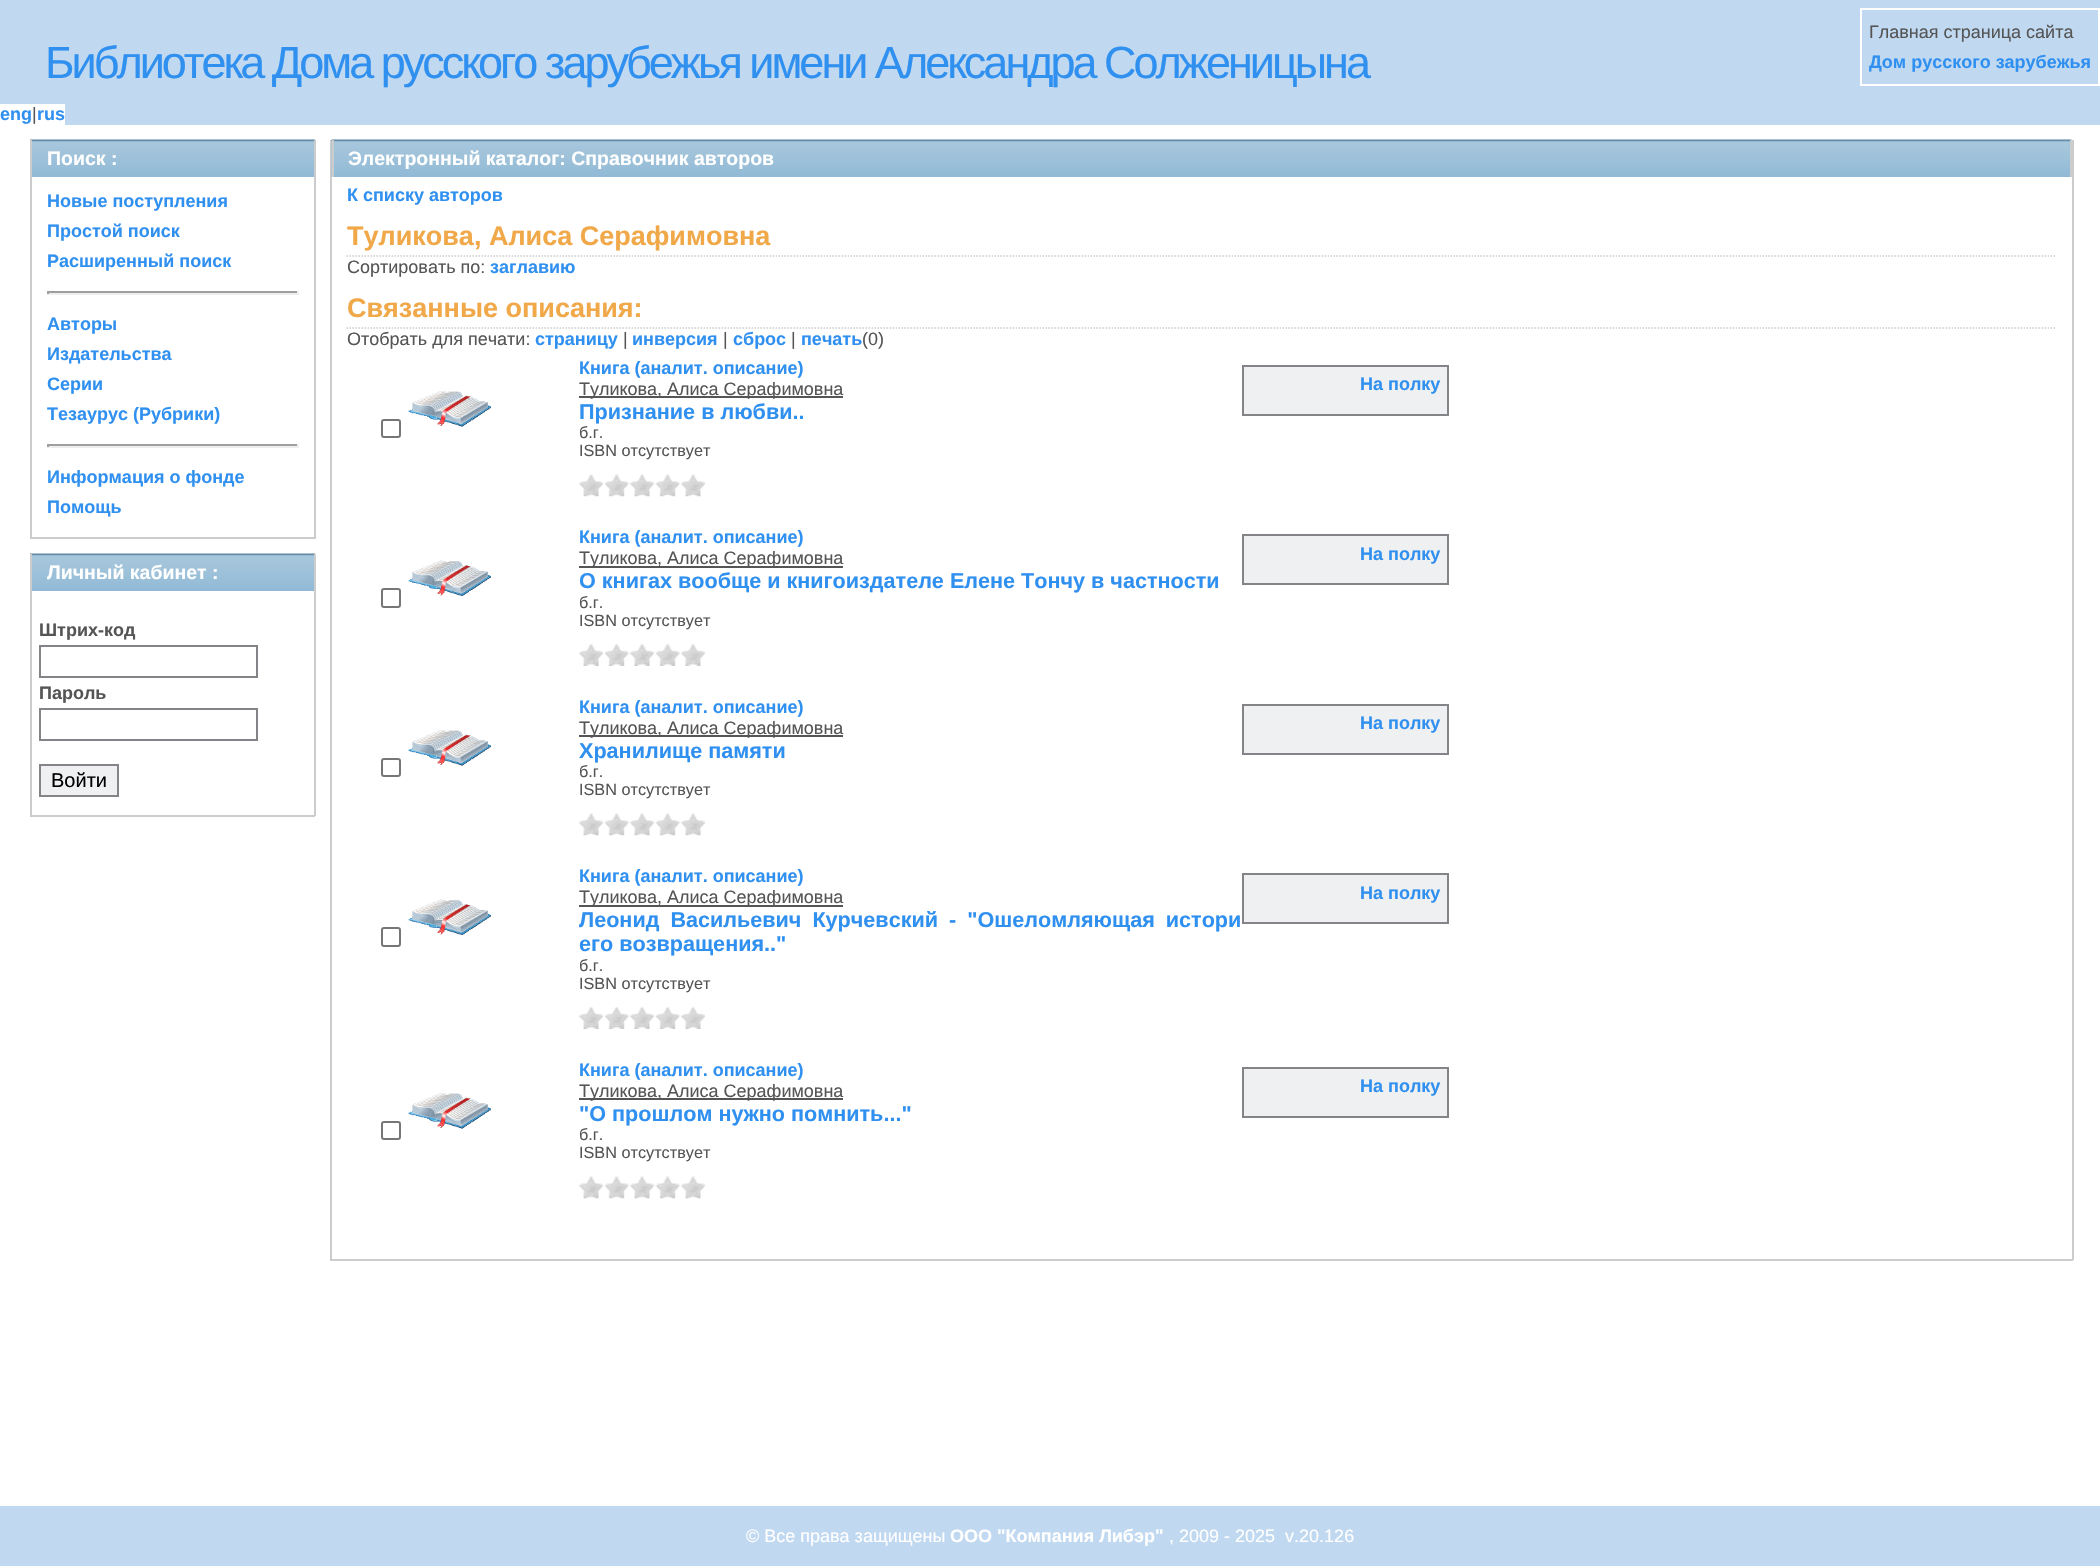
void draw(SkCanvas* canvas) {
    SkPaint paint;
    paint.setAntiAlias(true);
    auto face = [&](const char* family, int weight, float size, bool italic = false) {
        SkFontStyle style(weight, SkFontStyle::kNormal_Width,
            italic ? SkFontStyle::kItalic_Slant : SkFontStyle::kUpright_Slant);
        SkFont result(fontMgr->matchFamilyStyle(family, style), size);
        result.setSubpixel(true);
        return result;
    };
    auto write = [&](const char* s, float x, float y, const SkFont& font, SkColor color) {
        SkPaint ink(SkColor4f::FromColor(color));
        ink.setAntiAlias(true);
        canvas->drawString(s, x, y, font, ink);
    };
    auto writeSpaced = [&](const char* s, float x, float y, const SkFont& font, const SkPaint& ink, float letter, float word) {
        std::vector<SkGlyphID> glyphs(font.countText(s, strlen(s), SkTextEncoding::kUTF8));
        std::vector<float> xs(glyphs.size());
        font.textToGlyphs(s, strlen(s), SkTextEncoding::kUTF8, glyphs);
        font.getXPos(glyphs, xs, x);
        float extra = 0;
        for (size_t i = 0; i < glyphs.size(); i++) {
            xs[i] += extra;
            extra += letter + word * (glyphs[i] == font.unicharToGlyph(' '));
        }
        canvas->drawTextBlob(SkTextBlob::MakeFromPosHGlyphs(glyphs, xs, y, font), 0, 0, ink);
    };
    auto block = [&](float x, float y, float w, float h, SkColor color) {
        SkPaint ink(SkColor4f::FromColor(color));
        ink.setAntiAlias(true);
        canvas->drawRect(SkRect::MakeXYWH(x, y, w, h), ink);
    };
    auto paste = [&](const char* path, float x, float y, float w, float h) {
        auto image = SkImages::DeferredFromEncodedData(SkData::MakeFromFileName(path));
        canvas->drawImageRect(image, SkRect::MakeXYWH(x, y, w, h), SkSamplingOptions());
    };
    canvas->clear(SK_ColorWHITE);
    block(0, 0, 2100, 125, SkColorSetRGB(192, 216, 240));
    auto kFont1 = face("Liberation Sans", 400, 45);
    paint.setColor(SkColorSetRGB(48, 144, 240));
    writeSpaced("Библиотека Дома русского зарубежья имени Александра Солженицына", 45, 78, kFont1, paint, -3, 0);
    block(0, 104, 65, 21, SK_ColorWHITE);
    auto kFont2 = face("Liberation Sans", 700, 18);
    write("eng rus", 0, 120, kFont2, SkColorSetRGB(48, 144, 240));
    auto kFont3 = face("Liberation Sans", 400, 18);
    write("|", 32, 120, kFont3, SkColorSetRGB(85, 85, 85));
    paint.setStyle(SkPaint::kStroke_Style);
    paint.setStrokeWidth(2);
    paint.setColor(SK_ColorWHITE);
    canvas->drawRect(SkRect::MakeXYWH(1861, 9, 238, 76), paint);
    write("Главная страница сайта", 1869, 38, kFont3, SkColorSetRGB(85, 85, 85));
    write("Дом русского зарубежья", 1869, 68, kFont2, SkColorSetRGB(48, 144, 240));
    paste("pic1.png", 30, 139, 285, 38);
    block(314, 140, 2, 399, SkColorSetRGB(204, 204, 204));
    block(30, 140, 2, 37, SkColorSetRGB(204, 204, 204));
    auto kFont4 = face("Liberation Sans", 700, 19.5f);
    write("Поиск :", 47, 165, kFont4, SK_ColorWHITE);
    block(30, 537, 285, 2, SkColorSetRGB(204, 204, 204));
    block(30, 177, 2, 362, SkColorSetRGB(204, 204, 204));
    write("Новые поступления", 47, 207, kFont2, SkColorSetRGB(48, 144, 240));
    write("Простой поиск", 47, 237, kFont2, SkColorSetRGB(48, 144, 240));
    write("Расширенный поиск", 47, 267, kFont2, SkColorSetRGB(48, 144, 240));
    block(47, 291, 252, 2, SkColorSetRGB(159, 159, 159));
    block(297, 291, 2, 3, SkColorSetRGB(238, 238, 238));
    block(47, 293, 252, 2, SkColorSetRGB(238, 238, 238));
    block(47, 291, 2, 3, SkColorSetRGB(159, 159, 159));
    write("Авторы", 47, 330, kFont2, SkColorSetRGB(48, 144, 240));
    write("Издательства", 47, 360, kFont2, SkColorSetRGB(48, 144, 240));
    write("Серии", 47, 390, kFont2, SkColorSetRGB(48, 144, 240));
    write("Тезаурус (Рубрики)", 47, 420, kFont2, SkColorSetRGB(48, 144, 240));
    block(47, 444, 252, 2, SkColorSetRGB(159, 159, 159));
    block(297, 444, 2, 3, SkColorSetRGB(238, 238, 238));
    block(47, 446, 252, 2, SkColorSetRGB(238, 238, 238));
    block(47, 444, 2, 3, SkColorSetRGB(159, 159, 159));
    write("Информация о фонде", 47, 483, kFont2, SkColorSetRGB(48, 144, 240));
    write("Помощь", 47, 513, kFont2, SkColorSetRGB(48, 144, 240));
    paste("pic1.png", 30, 553, 285, 38);
    block(314, 554, 2, 262, SkColorSetRGB(204, 204, 204));
    block(30, 554, 2, 37, SkColorSetRGB(204, 204, 204));
    write("Личный кабинет :", 47, 579, kFont4, SK_ColorWHITE);
    block(30, 815, 285, 2, SkColorSetRGB(204, 204, 204));
    block(30, 591, 2, 225, SkColorSetRGB(204, 204, 204));
    write("Штрих-код", 39, 636, kFont2, SkColorSetRGB(85, 85, 85));
    paint.setColor(SkColorSetRGB(132, 131, 136));
    canvas->drawRect(SkRect::MakeXYWH(40, 646, 217, 31), paint);
    write("Пароль", 39, 699, kFont2, SkColorSetRGB(85, 85, 85));
    canvas->drawRect(SkRect::MakeXYWH(40, 709, 217, 31), paint);
    paint.setStyle(SkPaint::kFill_Style);
    paint.setColor(SkColorSetRGB(238, 240, 241));
    canvas->drawRect(SkRect::MakeXYWH(40, 765, 78, 31), paint);
    paint.setStyle(SkPaint::kStroke_Style);
    paint.setColor(SkColorSetRGB(132, 131, 136));
    canvas->drawRect(SkRect::MakeXYWH(40, 765, 78, 31), paint);
    auto kFont5 = face("Liberation Sans", 400, 20);
    write("Войти", 51, 787, kFont5, SK_ColorBLACK);
    block(2072, 140, 2, 1120, SkColorSetRGB(204, 204, 204));
    block(330, 1259, 1743, 2, SkColorSetRGB(204, 204, 204));
    block(330, 140, 2, 1120, SkColorSetRGB(204, 204, 204));
    paste("pic2.png", 331, 139, 1741, 38);
    block(2070, 140, 2, 37, SkColorSetRGB(204, 204, 204));
    block(332, 140, 2, 37, SkColorSetRGB(204, 204, 204));
    write("Электронный каталог: Справочник авторов", 348, 165, kFont4, SK_ColorWHITE);
    write("К списку авторов", 347, 201, kFont2, SkColorSetRGB(48, 144, 240));
    paint.setStrokeWidth(1.5f);
    paint.setColor(SkColorSetRGB(204, 204, 204));
    paint.setPathEffect(SkDashPathEffect::Make({{1.5f, 1.5f}}, 0));
    canvas->drawPath(SkPathBuilder().moveTo(346.5f, 256).lineTo(2056.5f, 256).detach(), paint);
    paint.setPathEffect(nullptr);
    auto kFont6 = face("Liberation Sans", 700, 27);
    write("Туликова, Алиса Серафимовна", 347, 245, kFont6, SkColorSetRGB(240, 168, 72));
    write("Сортировать по:", 347, 273, kFont3, SkColorSetRGB(85, 85, 85));
    write("заглавию", 490, 273, kFont2, SkColorSetRGB(48, 144, 240));
    paint.setPathEffect(SkDashPathEffect::Make({{1.5f, 1.5f}}, 0));
    canvas->drawPath(SkPathBuilder().moveTo(346.5f, 328).lineTo(2056.5f, 328).detach(), paint);
    paint.setPathEffect(nullptr);
    write("Связанные описания:", 347, 317, kFont6, SkColorSetRGB(240, 168, 72));
    write("Отобрать для печати:", 347, 345, kFont3, SkColorSetRGB(85, 85, 85));
    write("страницу", 535, 345, kFont2, SkColorSetRGB(48, 144, 240));
    write("|", 623, 345, kFont3, SkColorSetRGB(85, 85, 85));
    write("инверсия", 632, 345, kFont2, SkColorSetRGB(48, 144, 240));
    write("|", 723, 345, kFont3, SkColorSetRGB(85, 85, 85));
    write("сброс", 733, 345, kFont2, SkColorSetRGB(48, 144, 240));
    write("|", 791, 345, kFont3, SkColorSetRGB(85, 85, 85));
    write("печать", 801, 345, kFont2, SkColorSetRGB(48, 144, 240));
    write("(0)", 862, 345, kFont3, SkColorSetRGB(85, 85, 85));
    write("Книга (аналит. описание)", 579, 374, kFont2, SkColorSetRGB(48, 144, 240));
    block(579, 396, 264, 2, SkColorSetRGB(85, 85, 85));
    write("Туликова, Алиса Серафимовна", 579, 395, kFont3, SkColorSetRGB(85, 85, 85));
    auto kFont7 = face("Liberation Sans", 700, 21.6f);
    write("Признание в любви..", 579, 419, kFont7, SkColorSetRGB(48, 144, 240));
    auto kFont8 = face("Liberation Sans", 400, 16.25f);
    write("б.г.", 579, 438, kFont8, SkColorSetRGB(85, 85, 85));
    write("ISBN отсутствует", 579, 456, kFont8, SkColorSetRGB(85, 85, 85));
    paste("pic3.png", 579, 474, 24, 23);
    paste("pic4.png", 604, 474, 25, 23);
    paste("pic5.png", 630, 474, 24, 23);
    paste("pic4.png", 655, 474, 25, 23);
    paste("pic5.png", 681, 474, 24, 23);
    paint.setStyle(SkPaint::kFill_Style);
    paint.setColor(SkColorSetRGB(238, 240, 241));
    canvas->drawRect(SkRect::MakeXYWH(1243, 366, 205, 49), paint);
    paint.setStyle(SkPaint::kStroke_Style);
    paint.setStrokeWidth(2);
    paint.setColor(SkColorSetRGB(132, 131, 136));
    canvas->drawRect(SkRect::MakeXYWH(1243, 366, 205, 49), paint);
    write("На полку", 1360, 390, kFont2, SkColorSetRGB(48, 144, 240));
    paint.setColor(SkColorSetRGB(118, 118, 118));
    canvas->drawRoundRect(SkRect::MakeXYWH(382, 420, 18, 17), 2, 2, paint);
    paste("pic6.png", 408, 391, 83, 36);
    write("Книга (аналит. описание)", 579, 543, kFont2, SkColorSetRGB(48, 144, 240));
    block(579, 566, 264, 2, SkColorSetRGB(85, 85, 85));
    write("Туликова, Алиса Серафимовна", 579, 564, kFont3, SkColorSetRGB(85, 85, 85));
    write("О книгах вообще и книгоиздателе Елене Тончу в частности", 579, 588, kFont7, SkColorSetRGB(48, 144, 240));
    write("б.г.", 579, 608, kFont8, SkColorSetRGB(85, 85, 85));
    write("ISBN отсутствует", 579, 626, kFont8, SkColorSetRGB(85, 85, 85));
    paste("pic7.png", 579, 643, 24, 23);
    paste("pic8.png", 604, 644, 25, 22);
    paste("pic9.png", 630, 643, 24, 23);
    paste("pic8.png", 655, 644, 25, 22);
    paste("pic9.png", 681, 643, 24, 23);
    paint.setStyle(SkPaint::kFill_Style);
    paint.setColor(SkColorSetRGB(238, 240, 241));
    canvas->drawRect(SkRect::MakeXYWH(1243, 535, 205, 49), paint);
    paint.setStyle(SkPaint::kStroke_Style);
    paint.setColor(SkColorSetRGB(132, 131, 136));
    canvas->drawRect(SkRect::MakeXYWH(1243, 535, 205, 49), paint);
    write("На полку", 1360, 560, kFont2, SkColorSetRGB(48, 144, 240));
    paste("pic10.png", 408, 560, 83, 36);
    paint.setColor(SkColorSetRGB(118, 118, 118));
    canvas->drawRoundRect(SkRect::MakeXYWH(382, 589, 18, 18), 2, 2, paint);
    write("Книга (аналит. описание)", 579, 713, kFont2, SkColorSetRGB(48, 144, 240));
    block(579, 735, 264, 2, SkColorSetRGB(85, 85, 85));
    write("Туликова, Алиса Серафимовна", 579, 734, kFont3, SkColorSetRGB(85, 85, 85));
    write("Хранилище памяти", 579, 758, kFont7, SkColorSetRGB(48, 144, 240));
    write("б.г.", 579, 777, kFont8, SkColorSetRGB(85, 85, 85));
    write("ISBN отсутствует", 579, 795, kFont8, SkColorSetRGB(85, 85, 85));
    paste("pic3.png", 579, 813, 24, 23);
    paste("pic4.png", 604, 813, 25, 23);
    paste("pic5.png", 630, 813, 24, 23);
    paste("pic4.png", 655, 813, 25, 23);
    paste("pic5.png", 681, 813, 24, 23);
    paint.setStyle(SkPaint::kFill_Style);
    paint.setColor(SkColorSetRGB(238, 240, 241));
    canvas->drawRect(SkRect::MakeXYWH(1243, 705, 205, 49), paint);
    paint.setStyle(SkPaint::kStroke_Style);
    paint.setColor(SkColorSetRGB(132, 131, 136));
    canvas->drawRect(SkRect::MakeXYWH(1243, 705, 205, 49), paint);
    write("На полку", 1360, 729, kFont2, SkColorSetRGB(48, 144, 240));
    paint.setColor(SkColorSetRGB(118, 118, 118));
    canvas->drawRoundRect(SkRect::MakeXYWH(382, 759, 18, 17), 2, 2, paint);
    paste("pic6.png", 408, 730, 83, 36);
    write("Книга (аналит. описание)", 579, 882, kFont2, SkColorSetRGB(48, 144, 240));
    block(579, 905, 264, 2, SkColorSetRGB(85, 85, 85));
    write("Туликова, Алиса Серафимовна", 579, 903, kFont3, SkColorSetRGB(85, 85, 85));
    paint.setStyle(SkPaint::kFill_Style);
    paint.setColor(SkColorSetRGB(48, 144, 240));
    writeSpaced("Леонид Васильевич Курчевский - \"Ошеломляющая истори", 579, 927, kFont7, paint, 0, 5);
    write("его возвращения..\"", 579, 951, kFont7, SkColorSetRGB(48, 144, 240));
    write("б.г.", 579, 971, kFont8, SkColorSetRGB(85, 85, 85));
    write("ISBN отсутствует", 579, 989, kFont8, SkColorSetRGB(85, 85, 85));
    paste("pic7.png", 579, 1006, 24, 23);
    paste("pic8.png", 604, 1007, 25, 22);
    paste("pic9.png", 630, 1006, 24, 23);
    paste("pic8.png", 655, 1007, 25, 22);
    paste("pic9.png", 681, 1006, 24, 23);
    paint.setColor(SkColorSetRGB(238, 240, 241));
    canvas->drawRect(SkRect::MakeXYWH(1243, 874, 205, 49), paint);
    paint.setStyle(SkPaint::kStroke_Style);
    paint.setColor(SkColorSetRGB(132, 131, 136));
    canvas->drawRect(SkRect::MakeXYWH(1243, 874, 205, 49), paint);
    write("На полку", 1360, 899, kFont2, SkColorSetRGB(48, 144, 240));
    paste("pic10.png", 408, 899, 83, 36);
    paint.setColor(SkColorSetRGB(118, 118, 118));
    canvas->drawRoundRect(SkRect::MakeXYWH(382, 928, 18, 18), 2, 2, paint);
    write("Книга (аналит. описание)", 579, 1076, kFont2, SkColorSetRGB(48, 144, 240));
    block(579, 1098, 264, 2, SkColorSetRGB(85, 85, 85));
    write("Туликова, Алиса Серафимовна", 579, 1097, kFont3, SkColorSetRGB(85, 85, 85));
    write("\"О прошлом нужно помнить...\"", 579, 1121, kFont7, SkColorSetRGB(48, 144, 240));
    write("б.г.", 579, 1140, kFont8, SkColorSetRGB(85, 85, 85));
    write("ISBN отсутствует", 579, 1158, kFont8, SkColorSetRGB(85, 85, 85));
    paste("pic3.png", 579, 1176, 24, 23);
    paste("pic4.png", 604, 1176, 25, 23);
    paste("pic5.png", 630, 1176, 24, 23);
    paste("pic4.png", 655, 1176, 25, 23);
    paste("pic5.png", 681, 1176, 24, 23);
    paint.setStyle(SkPaint::kFill_Style);
    paint.setColor(SkColorSetRGB(238, 240, 241));
    canvas->drawRect(SkRect::MakeXYWH(1243, 1068, 205, 49), paint);
    paint.setStyle(SkPaint::kStroke_Style);
    paint.setColor(SkColorSetRGB(132, 131, 136));
    canvas->drawRect(SkRect::MakeXYWH(1243, 1068, 205, 49), paint);
    write("На полку", 1360, 1092, kFont2, SkColorSetRGB(48, 144, 240));
    paint.setColor(SkColorSetRGB(118, 118, 118));
    canvas->drawRoundRect(SkRect::MakeXYWH(382, 1122, 18, 17), 2, 2, paint);
    paste("pic6.png", 408, 1093, 83, 36);
    block(0, 1506, 2100, 60, SkColorSetRGB(192, 216, 240));
    write("© Все права защищены", 746, 1542, kFont3, SK_ColorWHITE);
    write("ООО \"Компания Либэр\"", 950, 1542, kFont2, SK_ColorWHITE);
    write(", 2009 - 2025  v.20.126", 1169, 1542, kFont3, SK_ColorWHITE);
}
